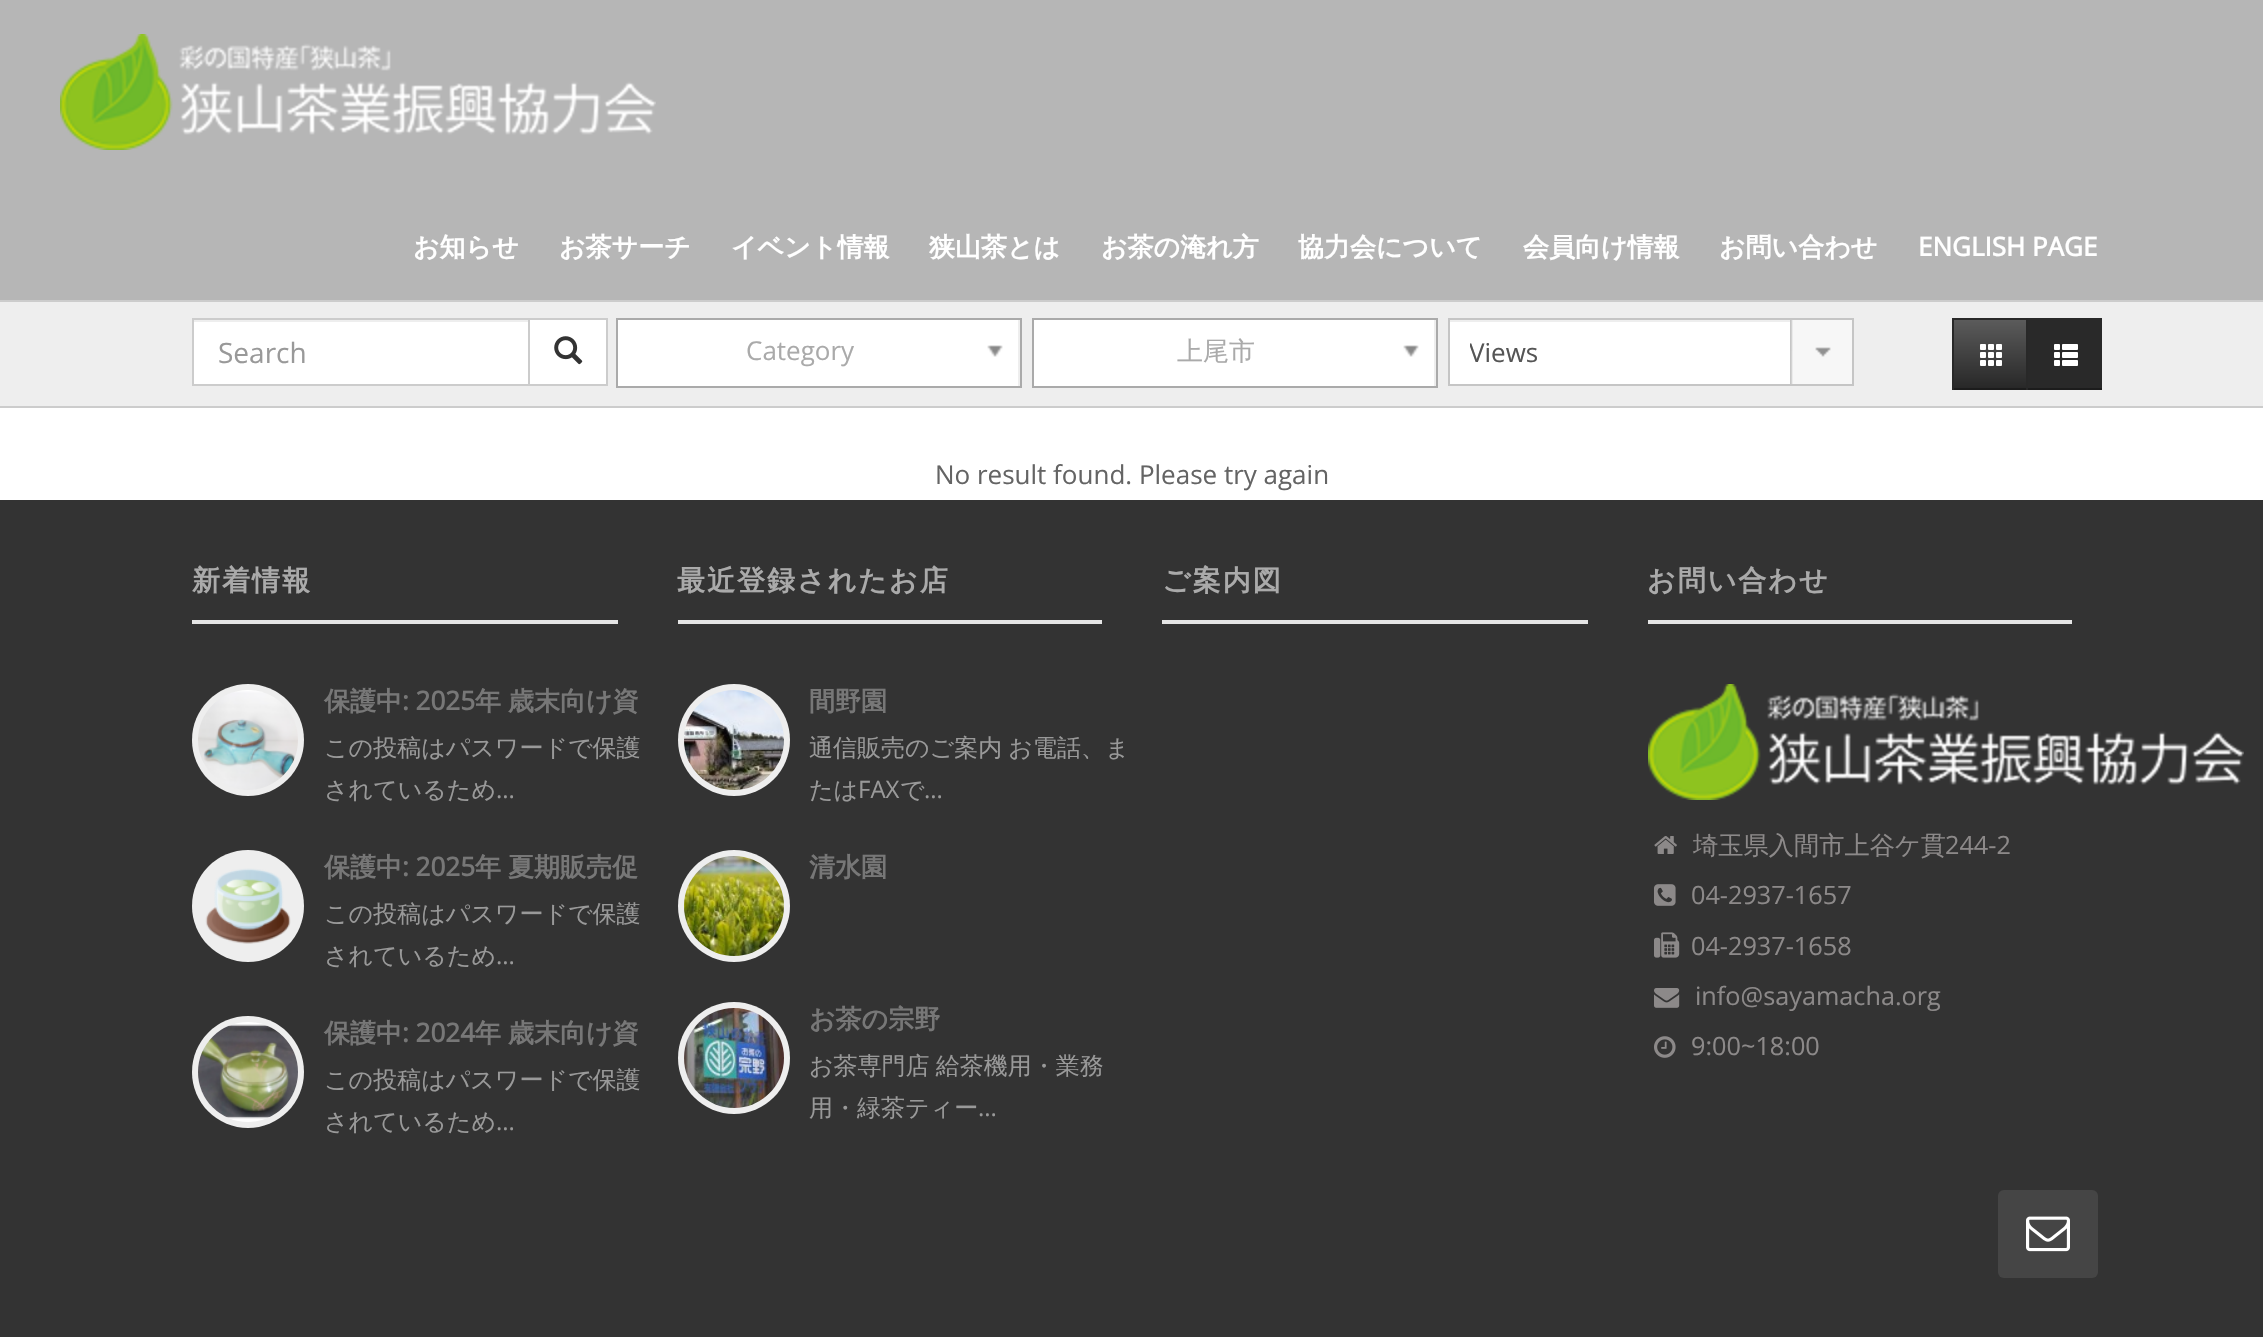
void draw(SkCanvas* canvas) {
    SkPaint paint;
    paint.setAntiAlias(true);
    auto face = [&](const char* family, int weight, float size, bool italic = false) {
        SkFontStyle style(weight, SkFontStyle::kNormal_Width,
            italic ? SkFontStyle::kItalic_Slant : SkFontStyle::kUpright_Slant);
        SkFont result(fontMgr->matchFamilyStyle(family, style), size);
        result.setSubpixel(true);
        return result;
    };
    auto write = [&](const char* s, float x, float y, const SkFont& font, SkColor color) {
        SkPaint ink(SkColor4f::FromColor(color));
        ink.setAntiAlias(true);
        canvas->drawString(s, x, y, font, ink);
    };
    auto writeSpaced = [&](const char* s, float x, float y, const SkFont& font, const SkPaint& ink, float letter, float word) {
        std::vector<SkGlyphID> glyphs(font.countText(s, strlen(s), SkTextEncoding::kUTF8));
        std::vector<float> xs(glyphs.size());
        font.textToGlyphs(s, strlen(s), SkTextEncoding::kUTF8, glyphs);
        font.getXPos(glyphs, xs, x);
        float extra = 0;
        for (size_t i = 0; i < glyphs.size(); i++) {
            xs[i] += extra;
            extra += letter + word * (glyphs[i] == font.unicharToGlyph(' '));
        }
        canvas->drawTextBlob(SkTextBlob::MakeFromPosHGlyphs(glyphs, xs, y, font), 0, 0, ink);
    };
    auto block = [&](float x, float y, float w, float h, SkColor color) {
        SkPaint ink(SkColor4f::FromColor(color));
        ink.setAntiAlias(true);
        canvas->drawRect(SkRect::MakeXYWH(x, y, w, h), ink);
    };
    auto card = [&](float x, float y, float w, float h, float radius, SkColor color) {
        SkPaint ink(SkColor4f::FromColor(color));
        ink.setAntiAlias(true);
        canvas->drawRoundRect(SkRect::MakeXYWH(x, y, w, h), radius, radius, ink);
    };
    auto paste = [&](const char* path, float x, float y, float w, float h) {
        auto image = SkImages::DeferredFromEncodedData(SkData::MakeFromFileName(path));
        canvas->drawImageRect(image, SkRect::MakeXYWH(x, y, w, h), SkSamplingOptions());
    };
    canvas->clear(SK_ColorWHITE);
    block(0, 0, 2263, 300, SkColorSetRGB(182, 182, 182));
    paste("pic1.png", 60, 34, 596, 116);
    auto kFont1 = face("WenQuanYi Zen Hei", 700, 26);
    write("お知らせ", 413, 256, kFont1, SK_ColorWHITE);
    write("お茶サーチ", 559, 256, kFont1, SK_ColorWHITE);
    write("イベント情報", 731, 256, kFont1, SK_ColorWHITE);
    write("狭山茶とは", 929, 256, kFont1, SK_ColorWHITE);
    write("お茶の淹れ方", 1101, 256, kFont1, SK_ColorWHITE);
    write("協力会について", 1298, 256, kFont1, SK_ColorWHITE);
    write("会員向け情報", 1523, 256, kFont1, SK_ColorWHITE);
    write("お問い合わせ", 1719, 256, kFont1, SK_ColorWHITE);
    auto kFont2 = face("Open Sans", 700, 26);
    write("ENGLISH PAGE", 1918, 256, kFont2, SK_ColorWHITE);
    block(0, 302, 2263, 104, SkColorSetRGB(238, 238, 238));
    block(0, 300, 2263, 2, SkColorSetRGB(204, 204, 204));
    block(0, 406, 2263, 2, SkColorSetRGB(204, 204, 204));
    block(194, 322, 334, 62, SK_ColorWHITE);
    paint.setColor(SK_ColorWHITE);
    canvas->drawRect(SkRect::MakeXYWH(529, 319, 78, 66), paint);
    paint.setStyle(SkPaint::kStroke_Style);
    paint.setStrokeWidth(2);
    paint.setColor(SkColorSetRGB(204, 204, 204));
    canvas->drawRect(SkRect::MakeXYWH(529, 319, 78, 66), paint);
    canvas->drawRect(SkRect::MakeXYWH(193, 319, 336, 66), paint);
    auto kFont3 = face("Open Sans", 400, 28);
    write("Search", 218, 363, kFont3, SkColorSetRGB(153, 153, 153));
    paste("pic2.png", 554, 336, 29, 29);
    block(618, 320, 400, 66, SK_ColorWHITE);
    paint.setColor(SkColorSetRGB(170, 170, 170));
    canvas->drawRect(SkRect::MakeXYWH(617, 319, 404, 68), paint);
    auto kFont4 = face("Open Sans", 400, 26);
    write("Category", 746, 360, kFont4, SkColorSetRGB(170, 170, 170));
    paste("pic3.png", 987, 345, 16, 12);
    block(1034, 320, 400, 66, SK_ColorWHITE);
    canvas->drawRect(SkRect::MakeXYWH(1033, 319, 404, 68), paint);
    auto kFont5 = face("WenQuanYi Zen Hei", 500, 26);
    write("上尾市", 1177, 360, kFont5, SkColorSetRGB(170, 170, 170));
    paste("pic3.png", 1403, 345, 16, 12);
    block(1450, 322, 340, 62, SK_ColorWHITE);
    paint.setColor(SkColorSetRGB(197, 197, 197));
    canvas->drawRect(SkRect::MakeXYWH(1449, 319, 404, 66), paint);
    canvas->save();
    canvas->clipRect(SkRect::MakeXYWH(1470, 334, 362, 36));
    write("Views", 1469, 362, kFont4, SkColorSetRGB(85, 85, 85));
    canvas->restore();
    paste("pic4.png", 1790, 320, 62, 64);
    block(1954, 318, 72, 2, SkColorSetRGB(41, 41, 41));
    paint.setStyle(SkPaint::kFill_Style);
    {
        const SkColor colors[] = {SkColorSetRGB(91, 91, 91), SkColorSetRGB(40, 40, 40)};
        const float stops[] = {0, 1};
        const SkPoint ends[] = {{1990, 320}, {1990, 388}};
        paint.setShader(SkGradientShader::MakeLinear(ends, colors, stops, 2, SkTileMode::kClamp));
        paint.setAlpha(255);
    }
    canvas->drawRect(SkRect::MakeXYWH(1954, 320, 72, 68), paint);
    block(1952, 388, 150, 2, SkColorSetRGB(28, 28, 28));
    block(1952, 318, 2, 72, SkColorSetRGB(40, 40, 40));
    paste("pic5.png", 1980, 344, 22, 22);
    block(2028, 318, 74, 70, SkColorSetRGB(41, 41, 41));
    block(2026, 318, 2, 72, SkColorSetRGB(40, 40, 40));
    paste("pic6.png", 2054, 344, 24, 22);
    write("No result found. Please try again", 935, 484, kFont4, SkColorSetRGB(100, 100, 100));
    block(0, 500, 2263, 837, SkColorSetRGB(51, 51, 51));
    auto kFont6 = face("WenQuanYi Zen Hei", 700, 28);
    paint.setShader(nullptr);
    paint.setColor(SkColorSetRGB(170, 170, 170));
    writeSpaced("新着情報", 192, 590, kFont6, paint, 2, 0);
    block(192, 620, 426, 4, SkColorSetRGB(229, 229, 229));
    paint.setColor(SkColorSetRGB(238, 238, 238));
    canvas->drawCircle(248, 740, 56, paint);
    paste("pic7.png", 198, 690, 100, 100);
    write("保護中", 324, 710, kFont1, SkColorSetRGB(119, 119, 119));
    write(": 2025", 402, 710, kFont2, SkColorSetRGB(119, 119, 119));
    write("年", 475, 710, kFont1, SkColorSetRGB(119, 119, 119));
    write("歳末向け資", 508, 710, kFont1, SkColorSetRGB(119, 119, 119));
    auto kFont7 = face("WenQuanYi Zen Hei", 500, 24);
    write("この投稿はパスワードで保護", 324, 756, kFont7, SkColorSetRGB(153, 153, 153));
    write("されているため", 324, 798, kFont7, SkColorSetRGB(153, 153, 153));
    auto kFont8 = face("Open Sans", 400, 24);
    write("...", 496, 798, kFont8, SkColorSetRGB(153, 153, 153));
    canvas->drawCircle(248, 906, 56, paint);
    paste("pic8.png", 205, 868, 86, 76);
    write("保護中", 324, 876, kFont1, SkColorSetRGB(119, 119, 119));
    write(": 2025", 402, 876, kFont2, SkColorSetRGB(119, 119, 119));
    write("年", 475, 876, kFont1, SkColorSetRGB(119, 119, 119));
    write("夏期販売促", 508, 876, kFont1, SkColorSetRGB(119, 119, 119));
    write("この投稿はパスワードで保護", 324, 922, kFont7, SkColorSetRGB(153, 153, 153));
    write("されているため", 324, 964, kFont7, SkColorSetRGB(153, 153, 153));
    write("...", 496, 964, kFont8, SkColorSetRGB(153, 153, 153));
    canvas->drawCircle(248, 1072, 56, paint);
    paste("pic9.png", 198, 1022, 100, 100);
    write("保護中", 324, 1042, kFont1, SkColorSetRGB(119, 119, 119));
    write(": 2024", 402, 1042, kFont2, SkColorSetRGB(119, 119, 119));
    write("年", 475, 1042, kFont1, SkColorSetRGB(119, 119, 119));
    write("歳末向け資", 508, 1042, kFont1, SkColorSetRGB(119, 119, 119));
    write("この投稿はパスワードで保護", 324, 1088, kFont7, SkColorSetRGB(153, 153, 153));
    write("されているため", 324, 1130, kFont7, SkColorSetRGB(153, 153, 153));
    write("...", 496, 1130, kFont8, SkColorSetRGB(153, 153, 153));
    paint.setColor(SkColorSetRGB(170, 170, 170));
    writeSpaced("最近登録されたお店", 677, 590, kFont6, paint, 2, 0);
    block(678, 620, 424, 4, SkColorSetRGB(229, 229, 229));
    paint.setColor(SkColorSetRGB(238, 238, 238));
    canvas->drawCircle(734, 740, 56, paint);
    paste("pic10.png", 684, 690, 100, 100);
    write("間野園", 809, 710, kFont1, SkColorSetRGB(119, 119, 119));
    paint.setColor(SkColorSetRGB(153, 153, 153));
    writeSpaced("通信販売のご案内 お電話、ま", 809, 756, kFont7, paint, 0, -1);
    write("たは", 809, 798, kFont7, SkColorSetRGB(153, 153, 153));
    write("FAX", 858, 798, kFont8, SkColorSetRGB(153, 153, 153));
    write("で", 900, 798, kFont7, SkColorSetRGB(153, 153, 153));
    write("...", 924, 798, kFont8, SkColorSetRGB(153, 153, 153));
    paint.setColor(SkColorSetRGB(238, 238, 238));
    canvas->drawCircle(734, 906, 56, paint);
    paste("pic11.png", 684, 856, 100, 100);
    write("清水園", 809, 876, kFont1, SkColorSetRGB(119, 119, 119));
    canvas->drawCircle(734, 1058, 56, paint);
    paste("pic12.png", 684, 1008, 100, 100);
    write("お茶の宗野", 809, 1028, kFont1, SkColorSetRGB(119, 119, 119));
    paint.setColor(SkColorSetRGB(153, 153, 153));
    writeSpaced("お茶専門店 給茶機用・業務", 809, 1074, kFont7, paint, 0, -1);
    write("用・緑茶ティー", 809, 1116, kFont7, SkColorSetRGB(153, 153, 153));
    write("...", 978, 1116, kFont8, SkColorSetRGB(153, 153, 153));
    paint.setColor(SkColorSetRGB(170, 170, 170));
    writeSpaced("ご案内図", 1162, 590, kFont6, paint, 2, 0);
    block(1162, 620, 426, 4, SkColorSetRGB(229, 229, 229));
    writeSpaced("お問い合わせ", 1647, 590, kFont6, paint, 2, 0);
    block(1648, 620, 424, 4, SkColorSetRGB(229, 229, 229));
    paste("pic13.png", 1648, 684, 596, 116);
    paste("pic14.png", 1654, 836, 23, 18);
    auto kFont9 = face("WenQuanYi Zen Hei", 500, 25.25f);
    write("埼玉県入間市上谷ケ貫", 1693, 854, kFont9, SkColorSetRGB(140, 137, 137));
    auto kFont10 = face("Open Sans", 400, 25.25f);
    write("244-2", 1945, 854, kFont10, SkColorSetRGB(140, 137, 137));
    paste("pic15.png", 1654, 884, 22, 22);
    write("04-2937-1657", 1691, 904, kFont10, SkColorSetRGB(140, 137, 137));
    paste("pic16.png", 1654, 932, 26, 26);
    write("04-2937-1658", 1691, 955, kFont10, SkColorSetRGB(140, 137, 137));
    paste("pic17.png", 1654, 988, 26, 20);
    write("info@sayamacha.org", 1695, 1005, kFont10, SkColorSetRGB(140, 137, 137));
    paste("pic18.png", 1654, 1036, 22, 22);
    write("9:00~18:00", 1691, 1055, kFont10, SkColorSetRGB(140, 137, 137));
    card(1998, 1190, 100, 88, 6, SkColorSetRGB(69, 69, 69));
    paste("pic19.png", 2026, 1216, 44, 36);
}
